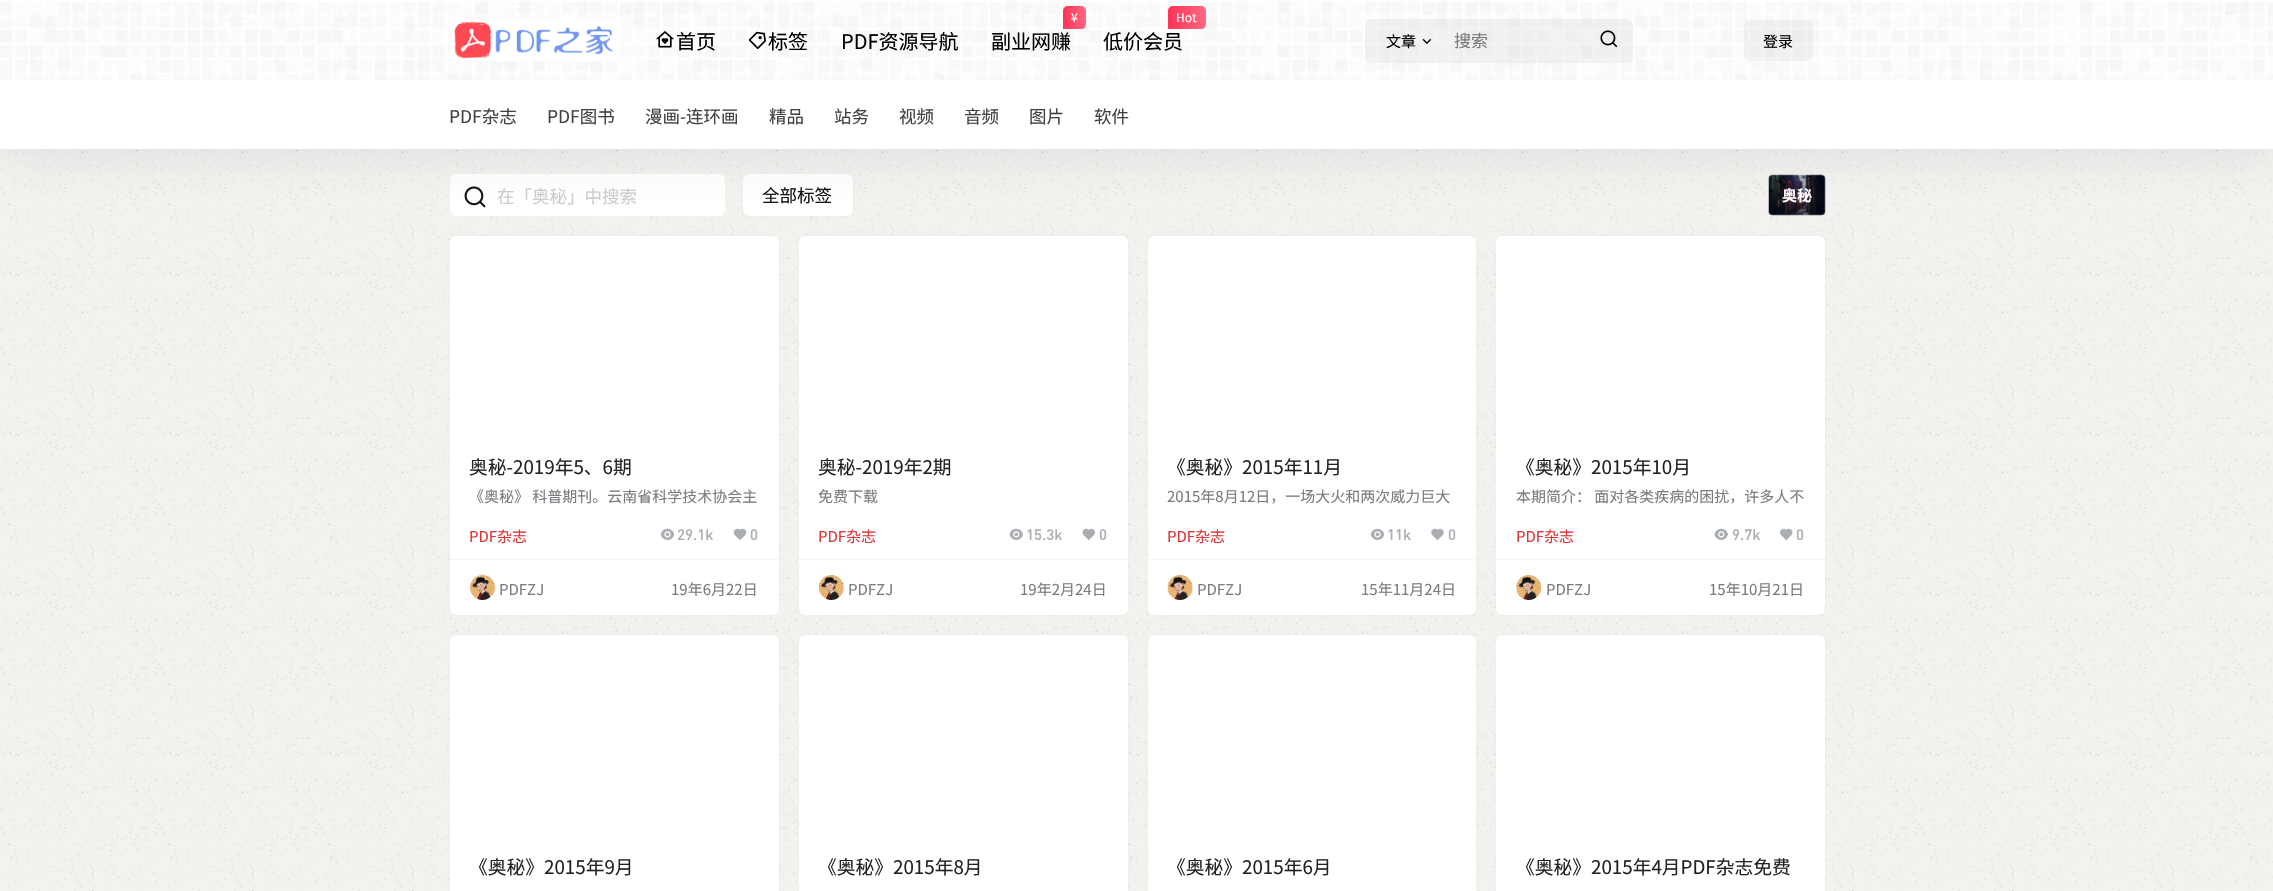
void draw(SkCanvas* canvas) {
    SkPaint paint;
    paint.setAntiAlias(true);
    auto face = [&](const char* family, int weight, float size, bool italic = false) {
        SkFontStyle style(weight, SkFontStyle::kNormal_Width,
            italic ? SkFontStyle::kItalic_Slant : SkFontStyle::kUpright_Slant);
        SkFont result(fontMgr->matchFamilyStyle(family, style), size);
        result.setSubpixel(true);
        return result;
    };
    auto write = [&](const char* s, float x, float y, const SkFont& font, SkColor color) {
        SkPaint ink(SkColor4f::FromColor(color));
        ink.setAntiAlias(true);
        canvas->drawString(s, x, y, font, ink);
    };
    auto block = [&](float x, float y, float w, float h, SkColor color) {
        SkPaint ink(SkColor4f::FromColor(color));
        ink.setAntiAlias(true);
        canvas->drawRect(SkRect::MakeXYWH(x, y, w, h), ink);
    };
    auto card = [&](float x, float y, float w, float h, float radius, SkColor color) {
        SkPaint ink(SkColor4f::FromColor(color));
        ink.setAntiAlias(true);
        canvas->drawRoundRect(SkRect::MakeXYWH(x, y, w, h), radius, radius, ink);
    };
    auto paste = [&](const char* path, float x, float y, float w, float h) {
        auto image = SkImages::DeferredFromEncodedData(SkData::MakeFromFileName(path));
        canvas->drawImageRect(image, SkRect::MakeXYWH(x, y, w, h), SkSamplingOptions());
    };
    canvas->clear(SK_ColorWHITE);
    paste("pic1.png", 0, 149, 2273, 742);
    card(450, 174, 275, 42, 6, SK_ColorWHITE);
    paste("pic8.png", 464, 186, 22, 22);
    paint.setColor(SkColorSetARGB(26, 98, 124, 153));
    paint.setMaskFilter(SkMaskFilter::MakeBlur(kNormal_SkBlurStyle, 1));
    canvas->drawRoundRect(SkRect::MakeXYWH(743, 174, 110, 42), 6, 6, paint);
    paint.setMaskFilter(nullptr);
    card(743, 174, 110, 42, 6, SK_ColorWHITE);
    paste("pic9.png", 1768, 174, 58, 42);
    card(1769, 175, 56, 40, 4, SkColorSetARGB(66, 0, 0, 0));
    paint.setColor(SkColorSetARGB(26, 17, 58, 93));
    paint.setMaskFilter(SkMaskFilter::MakeBlur(kNormal_SkBlurStyle, 25));
    canvas->drawRect(SkRect::MakeXYWH(0, 6, 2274, 149), paint);
    paint.setMaskFilter(nullptr);
    paste("pic2.png", 0, 0, 2273, 80);
    paste("pic3.png", 450, 19, 167, 42);
    paste("pic4.png", 656, 31, 18, 17);
    auto kFont1 = face("Noto Sans CJK SC", 400, 20);
    write("首页", 676, 49, kFont1, SK_ColorBLACK);
    paste("pic5.png", 748, 31, 18, 18);
    write("标签", 768, 49, kFont1, SK_ColorBLACK);
    write("PDF资源导航", 841, 49, kFont1, SK_ColorBLACK);
    {
        const SkColor colors[] = {SkColorSetRGB(255, 51, 85), SkColorSetRGB(255, 103, 128)};
        const float stops[] = {0, 1};
        const SkPoint ends[] = {{1062, 17}, {1086, 17}};
        paint.setShader(SkGradientShader::MakeLinear(ends, colors, stops, 2, SkTileMode::kClamp));
        paint.setAlpha(255);
    }
    canvas->drawPath(SkPathBuilder().moveTo(1068, 6).lineTo(1081, 6).cubicTo(1084, 6, 1086, 8, 1086, 11).lineTo(1086, 24).cubicTo(1086, 27, 1084, 29, 1081, 29).lineTo(1063, 29).lineTo(1063, 11).cubicTo(1063, 8, 1065, 6, 1068, 6).close().detach(), paint);
    auto kFont2 = face("Noto Sans CJK SC", 400, 12);
    write("¥", 1071, 22, kFont2, SK_ColorWHITE);
    write("副业网赚", 991, 49, kFont1, SK_ColorBLACK);
    {
        const SkColor colors[] = {SkColorSetRGB(255, 51, 85), SkColorSetRGB(255, 103, 128)};
        const float stops[] = {0, 1};
        const SkPoint ends[] = {{1167, 17}, {1206, 17}};
        paint.setShader(SkGradientShader::MakeLinear(ends, colors, stops, 2, SkTileMode::kClamp));
        paint.setAlpha(255);
    }
    canvas->drawPath(SkPathBuilder().moveTo(1173, 6).lineTo(1201, 6).cubicTo(1204, 6, 1206, 8, 1206, 11).lineTo(1206, 24).cubicTo(1206, 27, 1204, 29, 1201, 29).lineTo(1168, 29).lineTo(1168, 11).cubicTo(1168, 8, 1170, 6, 1173, 6).close().detach(), paint);
    write("Hot", 1176, 22, kFont2, SK_ColorWHITE);
    write("低价会员", 1103, 49, kFont1, SK_ColorBLACK);
    card(1365, 19, 268, 44, 6, SkColorSetARGB(54, 204, 204, 204));
    auto kFont3 = face("Noto Sans CJK SC", 400, 15);
    write("文章", 1386, 47, kFont3, SK_ColorBLACK);
    paste("pic6.png", 1422, 38, 10, 6);
    auto kFont4 = face("Noto Sans CJK SC", 400, 17);
    write("搜索", 1454, 47, kFont4, SkColorSetRGB(120, 120, 120));
    paste("pic7.png", 1600, 30, 18, 18);
    card(1744, 20, 69, 41, 6, SkColorSetARGB(54, 204, 204, 204));
    write("登录", 1763, 47, kFont3, SK_ColorBLACK);
    block(0, 81, 2273, 68, SK_ColorWHITE);
    block(0, 80, 2273, 1, SkColorSetRGB(252, 252, 252));
    auto kFont5 = face("Noto Sans CJK SC", 400, 17.5f);
    write("PDF杂志", 449, 123, kFont5, SkColorSetRGB(65, 65, 65));
    write("PDF图书", 547, 123, kFont5, SkColorSetRGB(65, 65, 65));
    write("漫画-连环画", 645, 123, kFont5, SkColorSetRGB(65, 65, 65));
    write("精品", 769, 123, kFont5, SkColorSetRGB(65, 65, 65));
    write("站务", 834, 123, kFont5, SkColorSetRGB(65, 65, 65));
    write("视频", 899, 123, kFont5, SkColorSetRGB(65, 65, 65));
    write("音频", 964, 123, kFont5, SkColorSetRGB(65, 65, 65));
    write("图片", 1029, 123, kFont5, SkColorSetRGB(65, 65, 65));
    write("软件", 1094, 123, kFont5, SkColorSetRGB(65, 65, 65));
    write("在「奥秘」中搜索", 497, 203, kFont5, SkColorSetRGB(204, 204, 204));
    write("全部标签", 762, 202, kFont5, SkColorSetRGB(18, 18, 18));
    auto kFont6 = face("Noto Sans CJK SC", 700, 15);
    write("奥秘", 1782, 201, kFont6, SK_ColorWHITE);
    paint.setShader(nullptr);
    paint.setColor(SkColorSetARGB(26, 98, 124, 153));
    paint.setMaskFilter(SkMaskFilter::MakeBlur(kNormal_SkBlurStyle, 1));
    canvas->drawRoundRect(SkRect::MakeXYWH(450, 236, 329, 379), 6, 6, paint);
    paint.setMaskFilter(nullptr);
    card(450, 236, 329, 379, 6, SK_ColorWHITE);
    auto kFont7 = face("Noto Sans CJK SC", 400, 18.75f);
    write("奥秘-2019年5、6期", 469, 474, kFont7, SkColorSetRGB(34, 34, 34));
    write("《奥秘》 科普期刊。云南省科学技术协会主", 469, 502, kFont3, SkColorSetRGB(121, 124, 128));
    write("PDF杂志", 469, 542, kFont3, SkColorSetRGB(221, 51, 51));
    paste("pic10.png", 660, 528, 15, 12);
    auto kFont8 = face("DIN", 500, 15);
    write("29.1k", 677, 540, kFont8, SkColorSetRGB(170, 174, 179));
    paste("pic11.png", 733, 528, 14, 12);
    write("0", 750, 540, kFont8, SkColorSetRGB(170, 174, 179));
    block(450, 559, 329, 1, SkColorSetRGB(245, 246, 247));
    paste("pic12.png", 470, 575, 25, 25);
    write("PDFZJ", 499, 595, kFont3, SkColorSetRGB(121, 124, 128));
    canvas->save();
    canvas->clipRect(SkRect::MakeXYWH(671, 579, 88, 17));
    write("19年6月22日", 671, 595, kFont3, SkColorSetRGB(121, 124, 128));
    canvas->restore();
    paint.setMaskFilter(SkMaskFilter::MakeBlur(kNormal_SkBlurStyle, 1));
    canvas->drawRoundRect(SkRect::MakeXYWH(799, 236, 329, 379), 6, 6, paint);
    paint.setMaskFilter(nullptr);
    card(799, 236, 329, 379, 6, SK_ColorWHITE);
    write("奥秘-2019年2期", 818, 474, kFont7, SkColorSetRGB(34, 34, 34));
    write("免费下载", 818, 502, kFont3, SkColorSetRGB(121, 124, 128));
    write("PDF杂志", 818, 542, kFont3, SkColorSetRGB(221, 51, 51));
    paste("pic13.png", 1009, 528, 14, 12);
    write("15.3k", 1026, 540, kFont8, SkColorSetRGB(170, 174, 179));
    paste("pic14.png", 1082, 528, 13, 13);
    write("0", 1099, 540, kFont8, SkColorSetRGB(170, 174, 179));
    block(799, 559, 329, 1, SkColorSetRGB(245, 246, 247));
    paint.setColor(SkColorSetRGB(238, 238, 238));
    canvas->drawCircle(831.5f, 587.5f, 12.5f, paint);
    paste("pic15.png", 818, 575, 26, 25);
    write("PDFZJ", 848, 595, kFont3, SkColorSetRGB(121, 124, 128));
    canvas->save();
    canvas->clipRect(SkRect::MakeXYWH(1020, 579, 88, 17));
    write("19年2月24日", 1020, 595, kFont3, SkColorSetRGB(121, 124, 128));
    canvas->restore();
    paint.setColor(SkColorSetARGB(26, 98, 124, 153));
    paint.setMaskFilter(SkMaskFilter::MakeBlur(kNormal_SkBlurStyle, 1));
    canvas->drawRoundRect(SkRect::MakeXYWH(1148, 236, 328, 379), 6, 6, paint);
    paint.setMaskFilter(nullptr);
    card(1148, 236, 328, 379, 6, SK_ColorWHITE);
    write("《奥秘》2015年11月", 1167, 474, kFont7, SkColorSetRGB(34, 34, 34));
    write("2015年8月12日，一场大火和两次威力巨大", 1167, 502, kFont3, SkColorSetRGB(121, 124, 128));
    write("PDF杂志", 1167, 542, kFont3, SkColorSetRGB(221, 51, 51));
    paste("pic10.png", 1370, 528, 15, 12);
    write("11k", 1387, 540, kFont8, SkColorSetRGB(170, 174, 179));
    paste("pic16.png", 1431, 528, 13, 13);
    write("0", 1448, 540, kFont8, SkColorSetRGB(170, 174, 179));
    block(1148, 559, 328, 1, SkColorSetRGB(245, 246, 247));
    paint.setColor(SkColorSetRGB(238, 238, 238));
    canvas->drawCircle(1180.5f, 587.5f, 12.5f, paint);
    paste("pic17.png", 1167, 575, 26, 25);
    write("PDFZJ", 1197, 595, kFont3, SkColorSetRGB(121, 124, 128));
    canvas->save();
    canvas->clipRect(SkRect::MakeXYWH(1361, 579, 95, 17));
    write("15年11月24日", 1361, 595, kFont3, SkColorSetRGB(121, 124, 128));
    canvas->restore();
    paint.setColor(SkColorSetARGB(26, 98, 124, 153));
    paint.setMaskFilter(SkMaskFilter::MakeBlur(kNormal_SkBlurStyle, 1));
    canvas->drawRoundRect(SkRect::MakeXYWH(1496, 236, 329, 379), 6, 6, paint);
    paint.setMaskFilter(nullptr);
    card(1496, 236, 329, 379, 6, SK_ColorWHITE);
    write("《奥秘》2015年10月", 1516, 474, kFont7, SkColorSetRGB(34, 34, 34));
    write("本期简介： 面对各类疾病的困扰，许多人不", 1516, 502, kFont3, SkColorSetRGB(121, 124, 128));
    write("PDF杂志", 1516, 542, kFont3, SkColorSetRGB(221, 51, 51));
    paste("pic13.png", 1714, 528, 14, 12);
    write("9.7k", 1732, 540, kFont8, SkColorSetRGB(170, 174, 179));
    paste("pic18.png", 1780, 528, 13, 13);
    write("0", 1796, 540, kFont8, SkColorSetRGB(170, 174, 179));
    block(1496, 559, 329, 1, SkColorSetRGB(245, 246, 247));
    paint.setColor(SkColorSetRGB(238, 238, 238));
    canvas->drawCircle(1528.5f, 587.5f, 12.5f, paint);
    paste("pic19.png", 1516, 575, 26, 25);
    write("PDFZJ", 1546, 595, kFont3, SkColorSetRGB(121, 124, 128));
    canvas->save();
    canvas->clipRect(SkRect::MakeXYWH(1710, 579, 95, 17));
    write("15年10月21日", 1709, 595, kFont3, SkColorSetRGB(121, 124, 128));
    canvas->restore();
    paint.setColor(SkColorSetARGB(26, 98, 124, 153));
    paint.setMaskFilter(SkMaskFilter::MakeBlur(kNormal_SkBlurStyle, 1));
    canvas->drawRoundRect(SkRect::MakeXYWH(450, 635, 329, 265), 6, 6, paint);
    paint.setMaskFilter(nullptr);
    card(450, 635, 329, 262, 6, SK_ColorWHITE);
    write("《奥秘》2015年9月", 469, 874, kFont7, SkColorSetRGB(34, 34, 34));
    paint.setMaskFilter(SkMaskFilter::MakeBlur(kNormal_SkBlurStyle, 1));
    canvas->drawRoundRect(SkRect::MakeXYWH(799, 635, 329, 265), 6, 6, paint);
    paint.setMaskFilter(nullptr);
    card(799, 635, 329, 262, 6, SK_ColorWHITE);
    write("《奥秘》2015年8月", 818, 874, kFont7, SkColorSetRGB(34, 34, 34));
    paint.setMaskFilter(SkMaskFilter::MakeBlur(kNormal_SkBlurStyle, 1));
    canvas->drawRoundRect(SkRect::MakeXYWH(1148, 635, 328, 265), 6, 6, paint);
    paint.setMaskFilter(nullptr);
    card(1148, 635, 328, 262, 6, SK_ColorWHITE);
    write("《奥秘》2015年6月", 1167, 874, kFont7, SkColorSetRGB(34, 34, 34));
    paint.setMaskFilter(SkMaskFilter::MakeBlur(kNormal_SkBlurStyle, 1));
    canvas->drawRoundRect(SkRect::MakeXYWH(1496, 635, 329, 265), 6, 6, paint);
    paint.setMaskFilter(nullptr);
    card(1496, 635, 329, 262, 6, SK_ColorWHITE);
    write("《奥秘》2015年4月PDF杂志免费", 1516, 874, kFont7, SkColorSetRGB(34, 34, 34));
}
